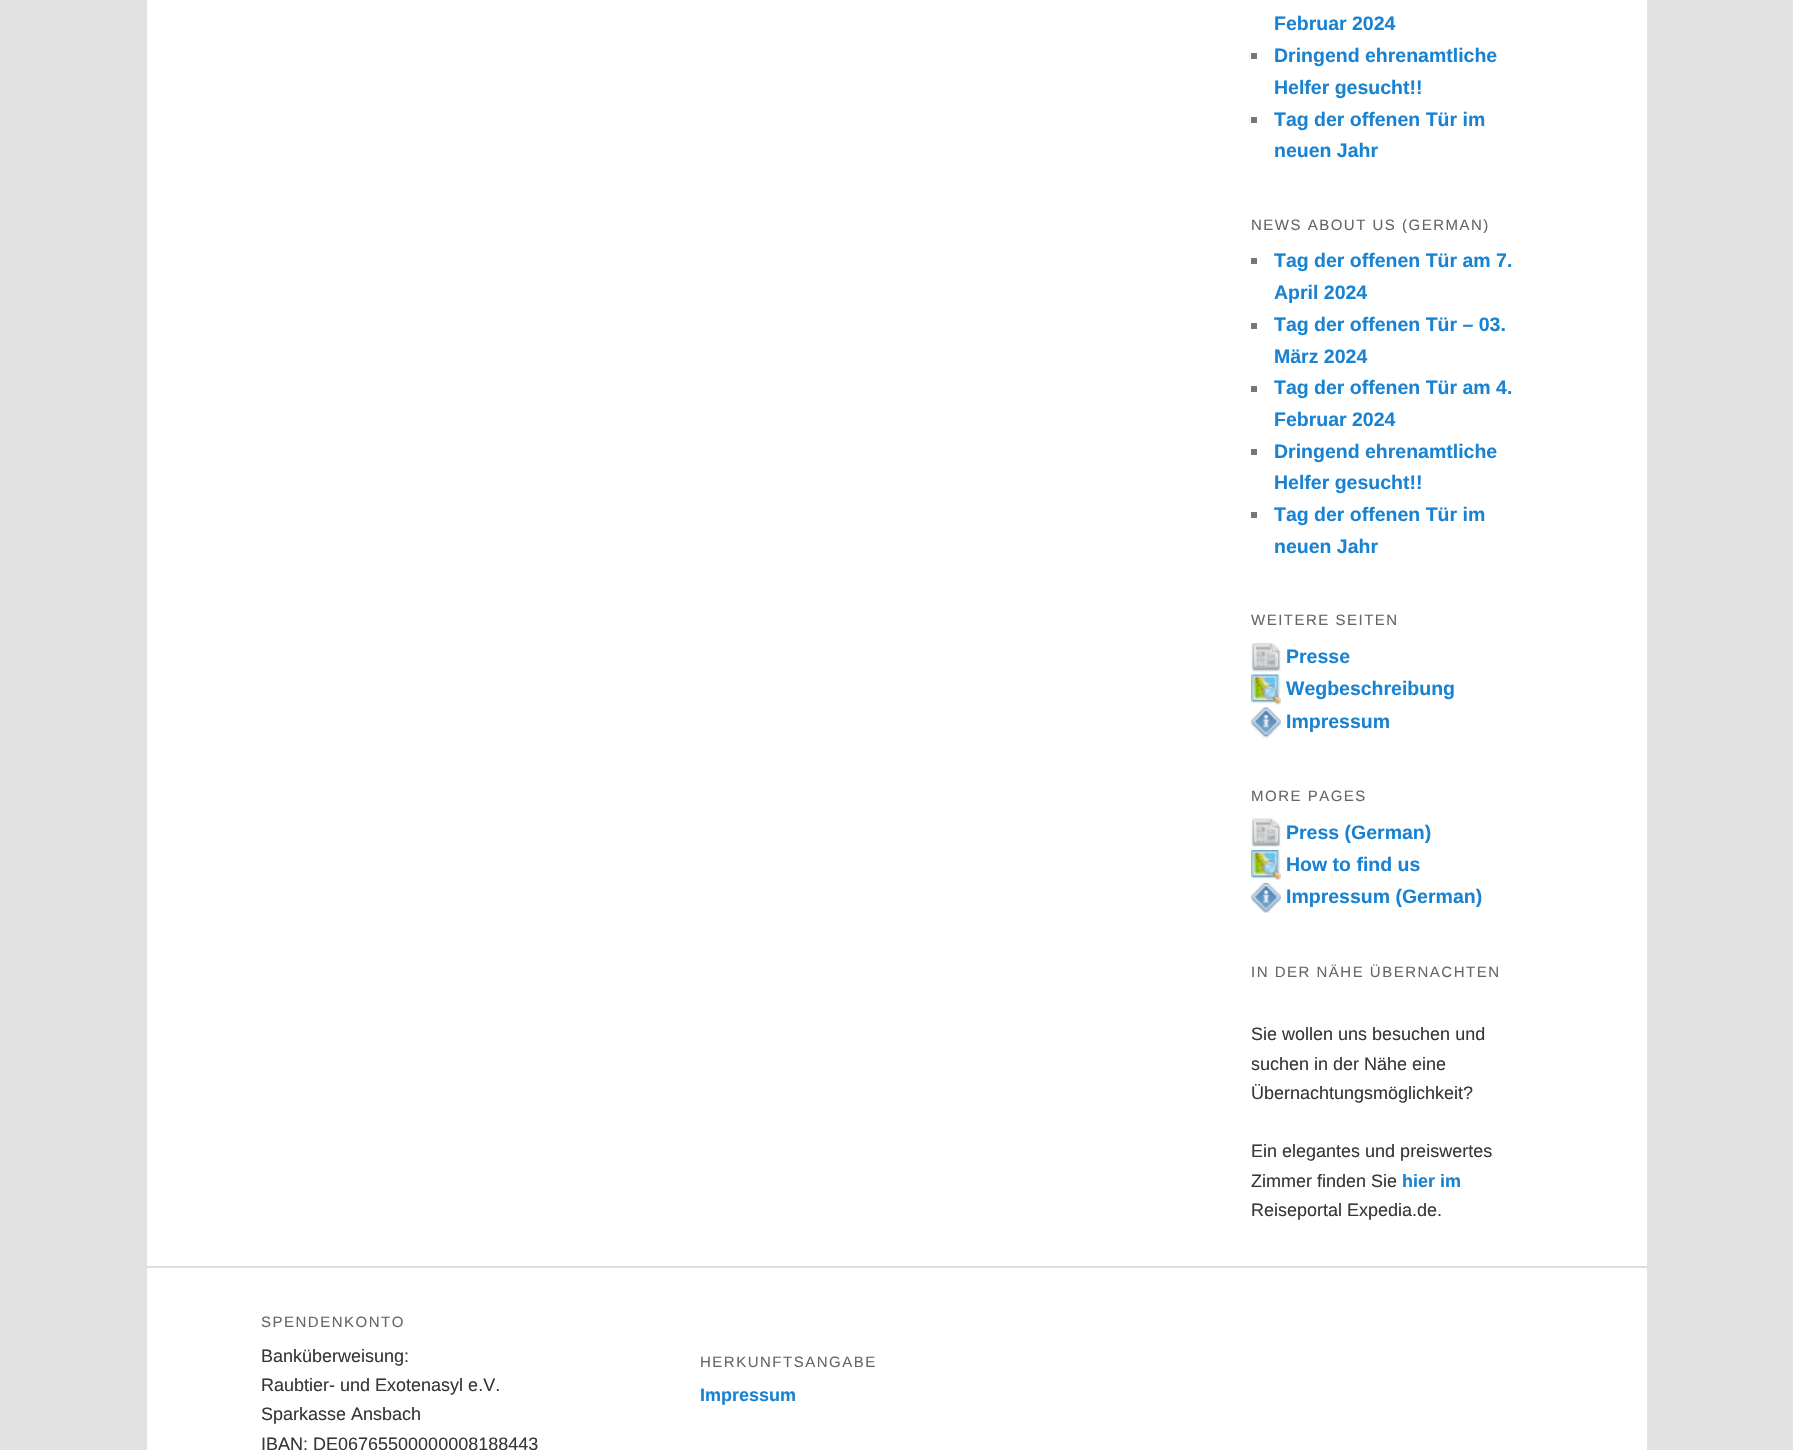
void draw(SkCanvas* canvas) {
    SkPaint paint;
    paint.setAntiAlias(true);
    auto face = [&](const char* family, int weight, float size, bool italic = false) {
        SkFontStyle style(weight, SkFontStyle::kNormal_Width,
            italic ? SkFontStyle::kItalic_Slant : SkFontStyle::kUpright_Slant);
        SkFont result(fontMgr->matchFamilyStyle(family, style), size);
        result.setSubpixel(true);
        return result;
    };
    auto write = [&](const char* s, float x, float y, const SkFont& font, SkColor color) {
        SkPaint ink(SkColor4f::FromColor(color));
        ink.setAntiAlias(true);
        canvas->drawString(s, x, y, font, ink);
    };
    auto writeSpaced = [&](const char* s, float x, float y, const SkFont& font, const SkPaint& ink, float letter, float word) {
        std::vector<SkGlyphID> glyphs(font.countText(s, strlen(s), SkTextEncoding::kUTF8));
        std::vector<float> xs(glyphs.size());
        font.textToGlyphs(s, strlen(s), SkTextEncoding::kUTF8, glyphs);
        font.getXPos(glyphs, xs, x);
        float extra = 0;
        for (size_t i = 0; i < glyphs.size(); i++) {
            xs[i] += extra;
            extra += letter + word * (glyphs[i] == font.unicharToGlyph(' '));
        }
        canvas->drawTextBlob(SkTextBlob::MakeFromPosHGlyphs(glyphs, xs, y, font), 0, 0, ink);
    };
    auto block = [&](float x, float y, float w, float h, SkColor color) {
        SkPaint ink(SkColor4f::FromColor(color));
        ink.setAntiAlias(true);
        canvas->drawRect(SkRect::MakeXYWH(x, y, w, h), ink);
    };
    auto paste = [&](const char* path, float x, float y, float w, float h) {
        auto image = SkImages::DeferredFromEncodedData(SkData::MakeFromFileName(path));
        canvas->drawImageRect(image, SkRect::MakeXYWH(x, y, w, h), SkSamplingOptions());
    };
    canvas->clear(SkColorSetRGB(226, 226, 226));
    block(147, 0, 1500, 1450, SK_ColorWHITE);
    auto kFont1 = face("Liberation Sans", 700, 19.5f);
    write("Februar 2024", 1274, 30, kFont1, SkColorSetRGB(25, 130, 209));
    block(1251, 53, 6, 6, SkColorSetRGB(119, 119, 119));
    write("Dringend ehrenamtliche", 1274, 62, kFont1, SkColorSetRGB(25, 130, 209));
    write("Helfer gesucht!!", 1274, 94, kFont1, SkColorSetRGB(25, 130, 209));
    block(1251, 117, 6, 6, SkColorSetRGB(119, 119, 119));
    write("Tag der offenen Tür im", 1274, 126, kFont1, SkColorSetRGB(25, 130, 209));
    write("neuen Jahr", 1274, 157, kFont1, SkColorSetRGB(25, 130, 209));
    auto kFont2 = face("Liberation Sans", 400, 15);
    paint.setColor(SkColorSetRGB(102, 102, 102));
    writeSpaced("NEWS ABOUT US (GERMAN)", 1251, 230, kFont2, paint, 1.5f, 0);
    block(1251, 258, 6, 6, SkColorSetRGB(119, 119, 119));
    write("Tag der offenen Tür am 7.", 1274, 267, kFont1, SkColorSetRGB(25, 130, 209));
    write("April 2024", 1274, 299, kFont1, SkColorSetRGB(25, 130, 209));
    block(1251, 323, 6, 6, SkColorSetRGB(119, 119, 119));
    write("Tag der offenen Tür – 03.", 1274, 331, kFont1, SkColorSetRGB(25, 130, 209));
    write("März 2024", 1274, 363, kFont1, SkColorSetRGB(25, 130, 209));
    block(1251, 386, 6, 6, SkColorSetRGB(119, 119, 119));
    write("Tag der offenen Tür am 4.", 1274, 394, kFont1, SkColorSetRGB(25, 130, 209));
    write("Februar 2024", 1274, 426, kFont1, SkColorSetRGB(25, 130, 209));
    block(1251, 449, 6, 6, SkColorSetRGB(119, 119, 119));
    write("Dringend ehrenamtliche", 1274, 458, kFont1, SkColorSetRGB(25, 130, 209));
    write("Helfer gesucht!!", 1274, 489, kFont1, SkColorSetRGB(25, 130, 209));
    block(1251, 512, 6, 6, SkColorSetRGB(119, 119, 119));
    write("Tag der offenen Tür im", 1274, 521, kFont1, SkColorSetRGB(25, 130, 209));
    write("neuen Jahr", 1274, 553, kFont1, SkColorSetRGB(25, 130, 209));
    writeSpaced("WEITERE SEITEN", 1251, 625, kFont2, paint, 1.5f, 0);
    paste("pic1.png", 1251, 643, 30, 29);
    write("Presse", 1286, 663, kFont1, SkColorSetRGB(25, 130, 209));
    paste("pic2.png", 1251, 674, 30, 31);
    write("Wegbeschreibung", 1286, 695, kFont1, SkColorSetRGB(25, 130, 209));
    paste("pic3.png", 1251, 707, 30, 31);
    write("Impressum", 1286, 728, kFont1, SkColorSetRGB(25, 130, 209));
    writeSpaced("MORE PAGES", 1251, 801, kFont2, paint, 1.5f, 0);
    paste("pic4.png", 1251, 818, 30, 29);
    write("Press (German)", 1286, 839, kFont1, SkColorSetRGB(25, 130, 209));
    paste("pic5.png", 1251, 850, 30, 30);
    write("How to find us", 1286, 871, kFont1, SkColorSetRGB(25, 130, 209));
    paste("pic6.png", 1251, 883, 30, 30);
    write("Impressum (German)", 1286, 903, kFont1, SkColorSetRGB(25, 130, 209));
    writeSpaced("IN DER NÄHE ÜBERNACHTEN", 1251, 977, kFont2, paint, 1.5f, 0);
    auto kFont3 = face("Liberation Sans", 400, 18);
    write("Sie wollen uns besuchen und", 1251, 1040, kFont3, SkColorSetRGB(55, 55, 55));
    write("suchen in der Nähe eine", 1251, 1070, kFont3, SkColorSetRGB(55, 55, 55));
    write("Übernachtungsmöglichkeit?", 1251, 1099, kFont3, SkColorSetRGB(55, 55, 55));
    write("Ein elegantes und preiswertes", 1251, 1157, kFont3, SkColorSetRGB(55, 55, 55));
    write("Zimmer finden Sie", 1251, 1187, kFont3, SkColorSetRGB(55, 55, 55));
    auto kFont4 = face("Liberation Sans", 700, 18);
    write("hier im", 1402, 1187, kFont4, SkColorSetRGB(25, 130, 209));
    write("Reiseportal Expedia.de.", 1251, 1216, kFont3, SkColorSetRGB(55, 55, 55));
    block(147, 1266, 1500, 2, SkColorSetRGB(221, 221, 221));
    writeSpaced("SPENDENKONTO", 261, 1327, kFont2, paint, 1.5f, 0);
    write("Banküberweisung:", 261, 1362, kFont3, SkColorSetRGB(55, 55, 55));
    write("Raubtier- und Exotenasyl e.V.", 261, 1391, kFont3, SkColorSetRGB(55, 55, 55));
    write("Sparkasse Ansbach", 261, 1420, kFont3, SkColorSetRGB(55, 55, 55));
    write("IBAN: DE06765500000008188443", 261, 1450, kFont3, SkColorSetRGB(55, 55, 55));
    writeSpaced("HERKUNFTSANGABE", 700, 1367, kFont2, paint, 1.5f, 0);
    write("Impressum", 700, 1401, kFont4, SkColorSetRGB(25, 130, 209));
}
